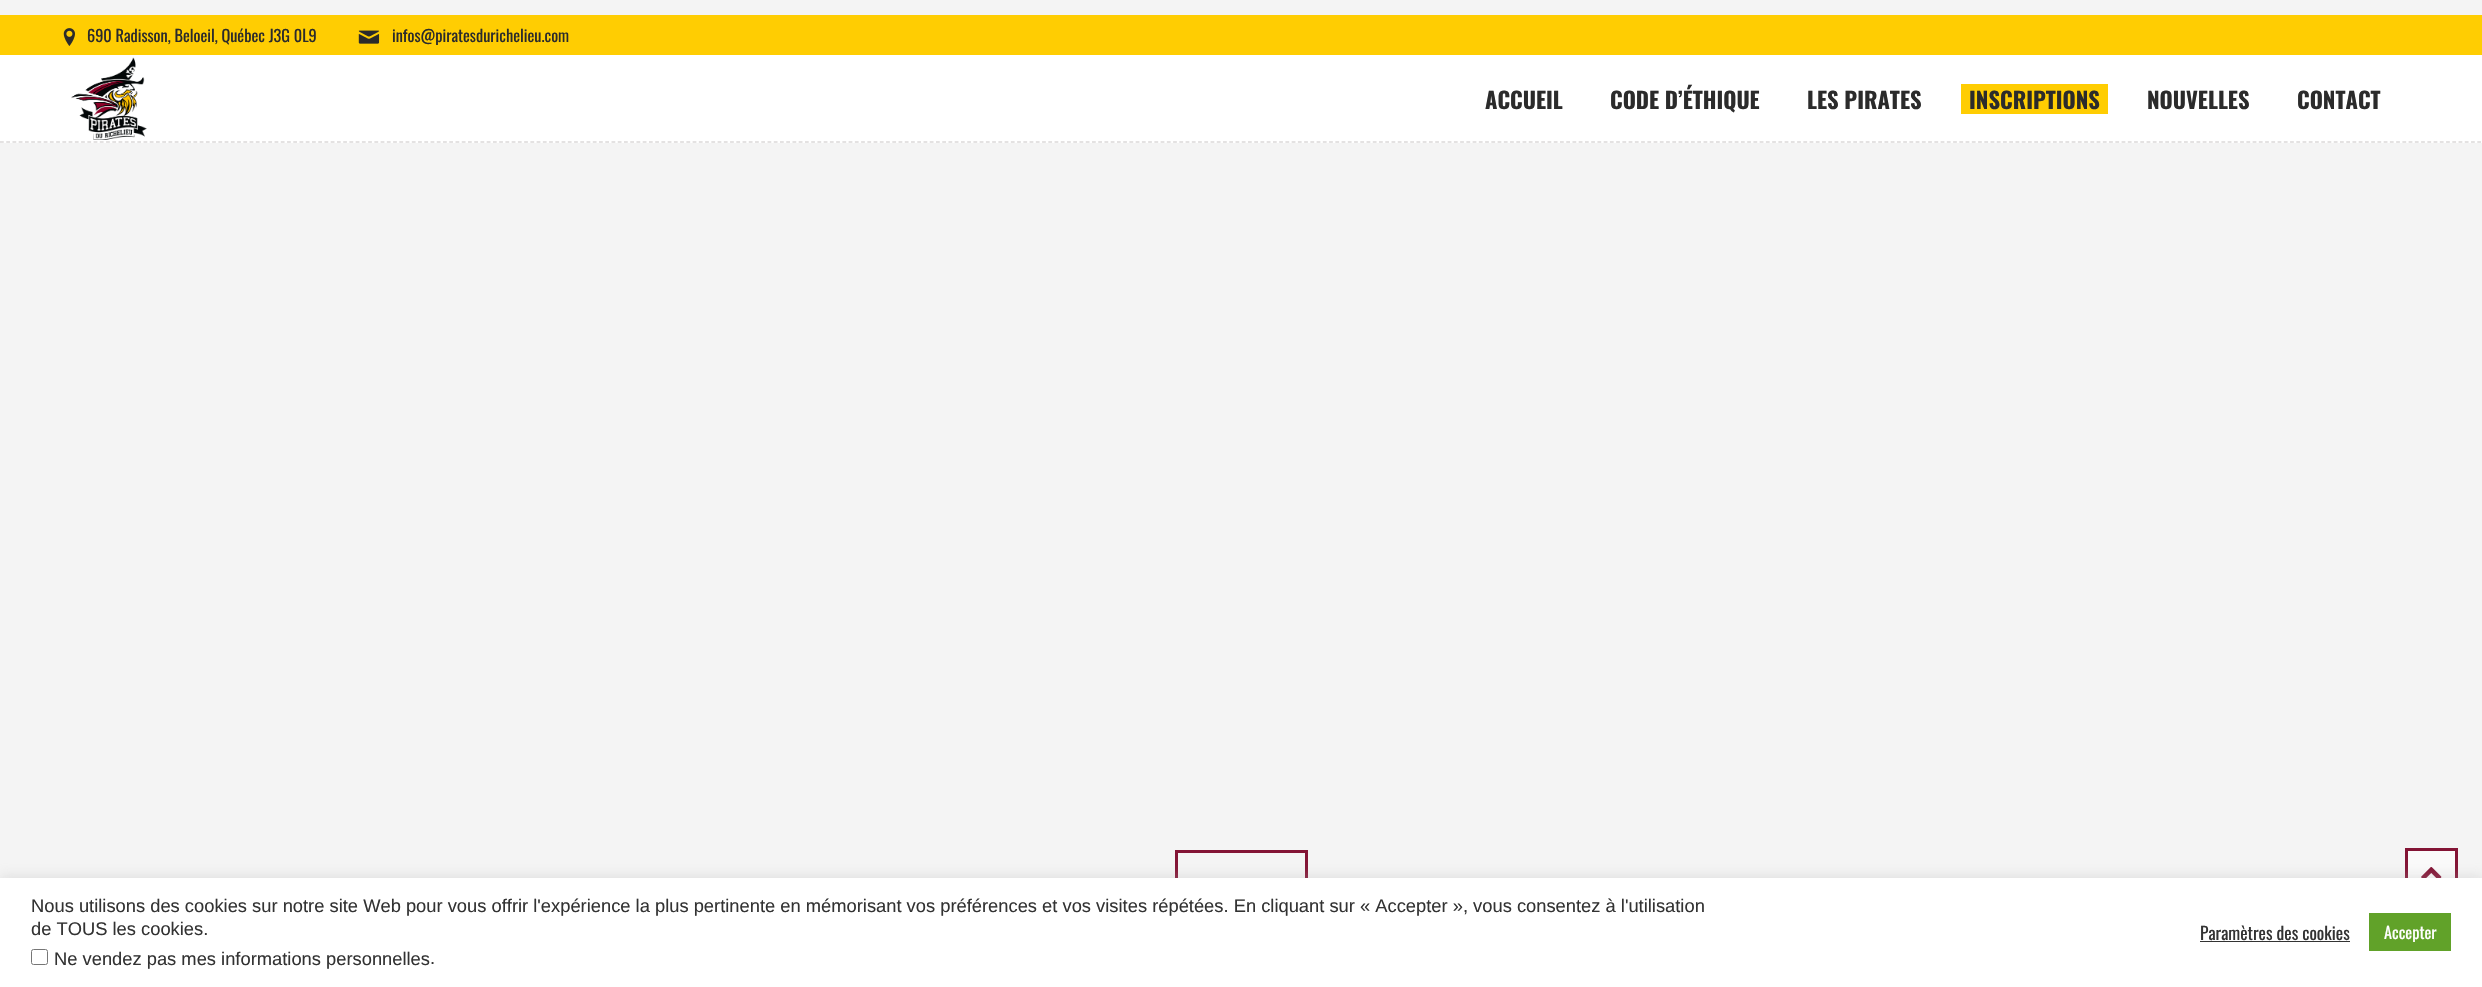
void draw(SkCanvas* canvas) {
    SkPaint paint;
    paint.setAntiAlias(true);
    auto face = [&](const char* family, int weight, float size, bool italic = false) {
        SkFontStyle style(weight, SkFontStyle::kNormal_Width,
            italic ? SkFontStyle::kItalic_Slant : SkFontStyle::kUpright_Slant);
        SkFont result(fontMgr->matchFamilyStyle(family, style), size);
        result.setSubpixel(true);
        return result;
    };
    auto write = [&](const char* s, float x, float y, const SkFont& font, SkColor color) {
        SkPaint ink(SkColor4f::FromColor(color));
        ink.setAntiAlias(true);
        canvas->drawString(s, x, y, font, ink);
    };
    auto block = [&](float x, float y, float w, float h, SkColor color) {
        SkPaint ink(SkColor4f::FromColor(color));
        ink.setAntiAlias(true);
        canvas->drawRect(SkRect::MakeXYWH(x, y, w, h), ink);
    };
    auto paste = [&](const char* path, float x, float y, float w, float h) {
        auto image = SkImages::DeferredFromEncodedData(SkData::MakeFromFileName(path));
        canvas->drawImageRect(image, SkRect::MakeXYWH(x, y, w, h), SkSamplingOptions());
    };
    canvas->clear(SkColorSetRGB(244, 244, 244));
    block(0, 15, 2482, 40, SkColorSetRGB(255, 205, 2));
    paste("pic1.png", 63, 28, 12, 18);
    auto kFont1 = face("Oswald", 400, 16.25f);
    write("690 Radisson, Beloeil, Québec J3G 0L9", 87, 42, kFont1, SkColorSetRGB(43, 43, 43));
    paste("pic2.png", 358, 30, 22, 14);
    write("infos@piratesdurichelieu.com", 392, 42, kFont1, SkColorSetRGB(43, 43, 43));
    block(0, 55, 2482, 88, SK_ColorWHITE);
    paint.setStyle(SkPaint::kStroke_Style);
    paint.setStrokeWidth(1.2f);
    paint.setColor(SkColorSetRGB(201, 198, 198));
    paint.setPathEffect(SkDashPathEffect::Make({{3.75f, 2.49f}}, 0));
    canvas->drawPath(SkPathBuilder().moveTo(0, 142).lineTo(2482.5f, 142).detach(), paint);
    paint.setPathEffect(nullptr);
    paste("pic3.png", 71, 57, 76, 83);
    auto kFont2 = face("Oswald", 700, 22.5f);
    write("ACCUEIL", 1485, 109, kFont2, SkColorSetRGB(43, 43, 43));
    write("CODE D’ÉTHIQUE", 1610, 109, kFont2, SkColorSetRGB(43, 43, 43));
    write("LES PIRATES", 1807, 109, kFont2, SkColorSetRGB(43, 43, 43));
    block(1961, 84, 147, 30, SkColorSetRGB(255, 205, 2));
    write("INSCRIPTIONS", 1969, 109, kFont2, SkColorSetRGB(43, 43, 43));
    write("NOUVELLES", 2147, 109, kFont2, SkColorSetRGB(43, 43, 43));
    write("CONTACT", 2297, 109, kFont2, SkColorSetRGB(43, 43, 43));
    paint.setStrokeWidth(3);
    paint.setColor(SkColorSetRGB(131, 20, 53));
    canvas->drawRect(SkRect::MakeXYWH(1176.5f, 851.5f, 130, 52), paint);
    block(2408, 851, 47, 27, SkColorSetRGB(250, 250, 250));
    canvas->drawRect(SkRect::MakeXYWH(2406.5f, 849.5f, 50, 49), paint);
    paste("pic4.png", 2421, 867, 21, 11);
    paint.setStyle(SkPaint::kFill_Style);
    paint.setColor(SkColorSetARGB(77, 172, 171, 171));
    paint.setMaskFilter(SkMaskFilter::MakeBlur(kNormal_SkBlurStyle, 6));
    canvas->drawRect(SkRect::MakeXYWH(0, 876, 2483, 110), paint);
    paint.setMaskFilter(nullptr);
    block(0, 878, 2482, 109, SK_ColorWHITE);
    auto kFont3 = face("Liberation Sans", 400, 18.33f);
    write("Nous utilisons des cookies sur notre site Web pour vous offrir l'expérience la plus pertinente en mémorisant vos préférences et vos visites répétées. En cliquant sur « Accepter », vous consentez à l'utilisation", 31, 912, kFont3, SkColorSetRGB(51, 51, 51));
    write("de TOUS les cookies.", 31, 935, kFont3, SkColorSetRGB(51, 51, 51));
    paint.setStyle(SkPaint::kStroke_Style);
    paint.setStrokeWidth(1);
    paint.setColor(SkColorSetRGB(118, 118, 118));
    canvas->drawRoundRect(SkRect::MakeXYWH(31.5f, 949.5f, 16, 15), 2, 2, paint);
    write("Ne vendez pas mes informations personnelles", 54, 965, kFont3, SkColorSetRGB(51, 51, 51));
    write(".", 430, 964, kFont3, SkColorSetRGB(51, 51, 51));
    auto kFont4 = face("Oswald", 400, 17.5f);
    write("Paramètres des cookies", 2200, 940, kFont4, SkColorSetRGB(51, 51, 51));
    block(2200, 941, 150, 1, SkColorSetRGB(51, 51, 51));
    block(2369, 913, 82, 38, SkColorSetRGB(97, 162, 41));
    write("Accepter", 2384, 939, kFont1, SK_ColorWHITE);
}
